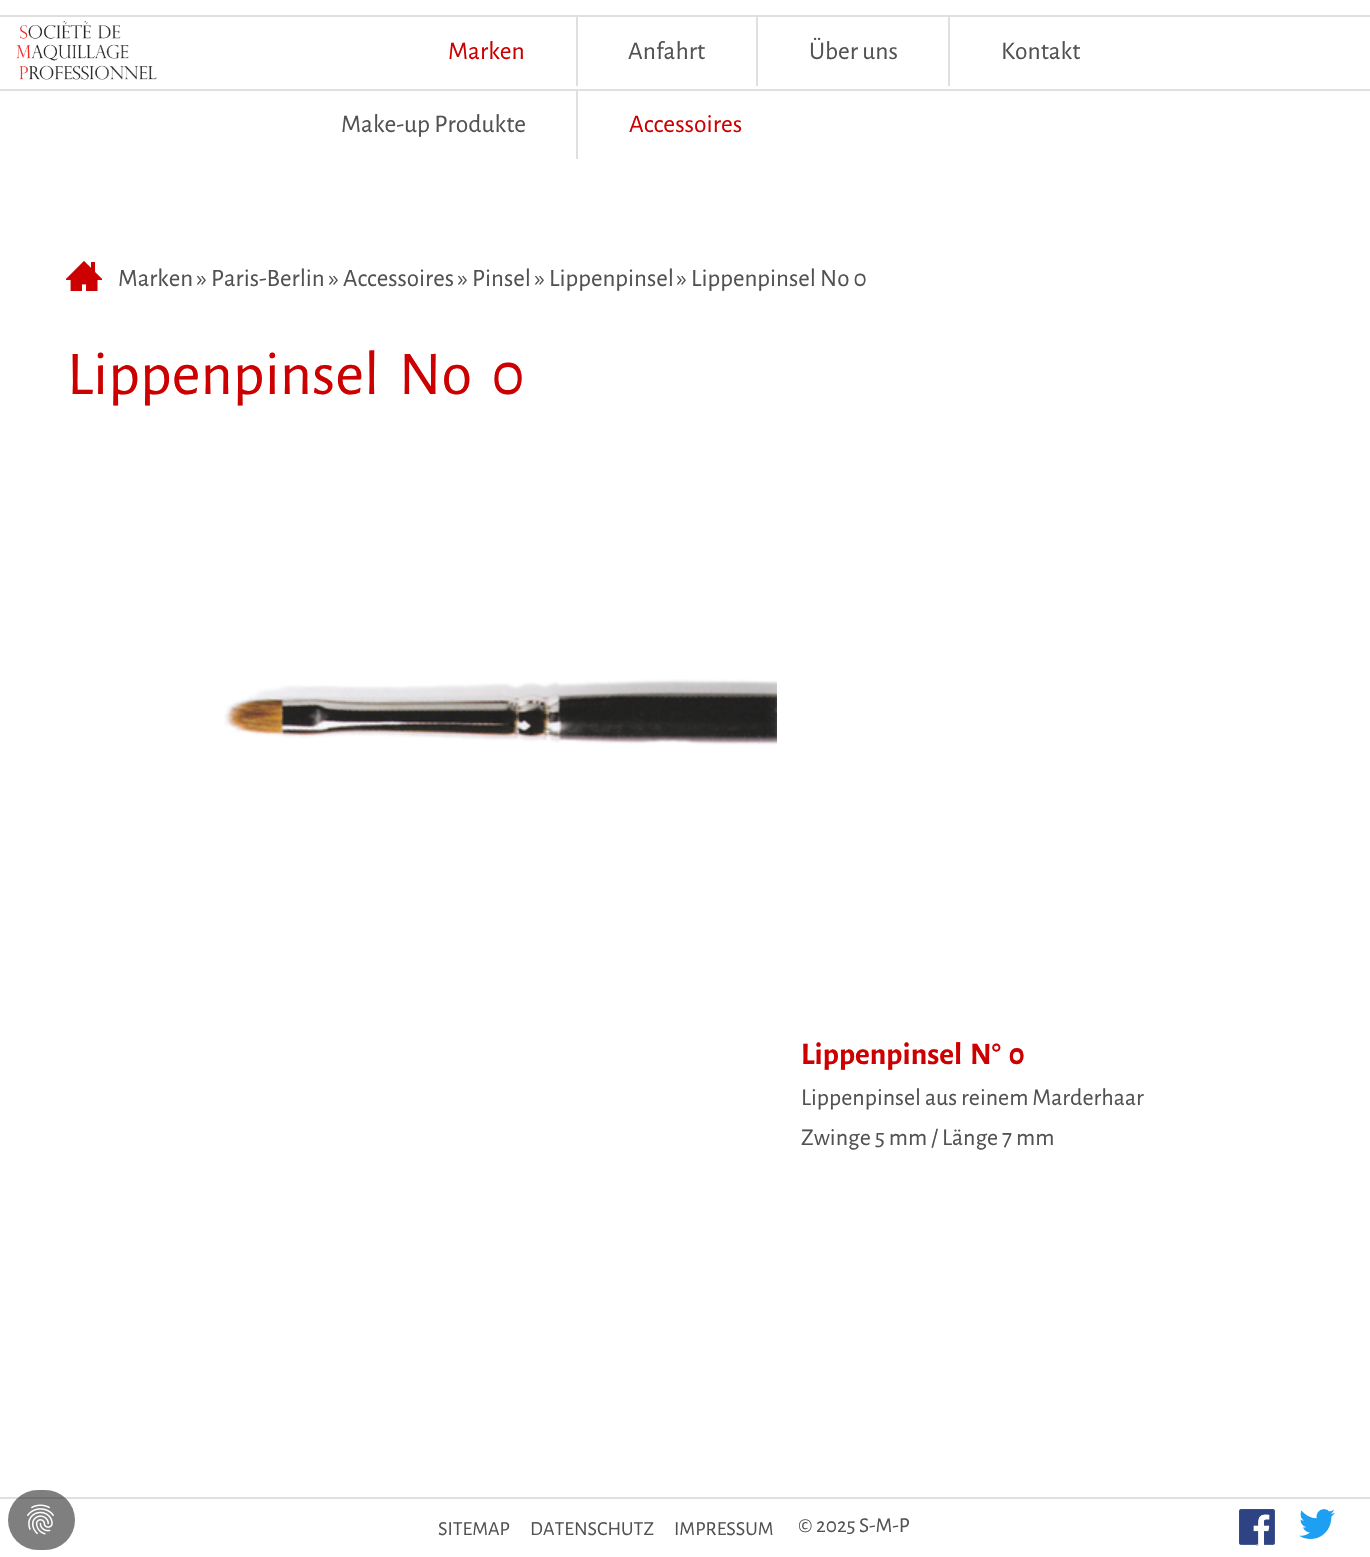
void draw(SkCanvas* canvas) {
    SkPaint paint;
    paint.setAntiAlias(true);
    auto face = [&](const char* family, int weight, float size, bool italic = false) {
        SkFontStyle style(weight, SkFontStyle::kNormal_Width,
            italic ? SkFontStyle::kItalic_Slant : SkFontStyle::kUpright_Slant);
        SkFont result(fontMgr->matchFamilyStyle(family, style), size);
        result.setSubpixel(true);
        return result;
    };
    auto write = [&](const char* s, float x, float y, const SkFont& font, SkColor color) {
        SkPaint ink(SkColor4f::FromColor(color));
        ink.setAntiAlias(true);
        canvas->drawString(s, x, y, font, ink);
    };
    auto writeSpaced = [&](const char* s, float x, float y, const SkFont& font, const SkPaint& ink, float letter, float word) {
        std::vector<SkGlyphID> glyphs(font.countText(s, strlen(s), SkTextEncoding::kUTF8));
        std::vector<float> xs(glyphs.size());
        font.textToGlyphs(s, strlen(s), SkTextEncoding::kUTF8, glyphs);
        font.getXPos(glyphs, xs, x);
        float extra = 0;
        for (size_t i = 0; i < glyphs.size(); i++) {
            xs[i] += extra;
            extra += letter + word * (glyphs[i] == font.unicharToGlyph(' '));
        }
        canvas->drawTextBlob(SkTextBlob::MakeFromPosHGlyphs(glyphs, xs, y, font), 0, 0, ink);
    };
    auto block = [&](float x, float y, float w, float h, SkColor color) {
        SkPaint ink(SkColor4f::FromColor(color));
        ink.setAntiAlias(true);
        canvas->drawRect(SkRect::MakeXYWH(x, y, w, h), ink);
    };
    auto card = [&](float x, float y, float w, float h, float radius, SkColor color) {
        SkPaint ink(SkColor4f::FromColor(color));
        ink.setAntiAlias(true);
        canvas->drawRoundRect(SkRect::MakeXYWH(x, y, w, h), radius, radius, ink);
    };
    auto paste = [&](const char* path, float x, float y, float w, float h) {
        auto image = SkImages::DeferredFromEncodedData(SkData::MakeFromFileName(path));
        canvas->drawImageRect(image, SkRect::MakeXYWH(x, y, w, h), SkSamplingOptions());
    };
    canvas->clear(SK_ColorWHITE);
    paste("pic1.png", 16, 21, 141, 59);
    block(0, 15, 1370, 2, SkColorSetRGB(224, 224, 224));
    block(576, 90, 2, 69, SkColorSetRGB(224, 224, 224));
    block(0, 89, 1370, 2, SkColorSetRGB(224, 224, 224));
    block(576, 17, 2, 69, SkColorSetRGB(224, 224, 224));
    auto kFont1 = face("Alegreya Sans", 400, 25.5f);
    write("Marken", 448, 59, kFont1, SkColorSetRGB(204, 0, 0));
    block(756, 17, 2, 69, SkColorSetRGB(224, 224, 224));
    write("Anfahrt", 628, 59, kFont1, SkColorSetRGB(82, 82, 82));
    block(948, 17, 2, 69, SkColorSetRGB(224, 224, 224));
    write("Über uns", 809, 59, kFont1, SkColorSetRGB(82, 82, 82));
    write("Kontakt", 1001, 59, kFont1, SkColorSetRGB(82, 82, 82));
    paste("pic2.png", 66, 261, 36, 30);
    auto kFont2 = face("Alegreya Sans", 400, 25);
    write("Marken", 118, 286, kFont2, SkColorSetRGB(82, 82, 82));
    write("»", 197, 286, kFont2, SkColorSetRGB(82, 82, 82));
    write("Paris-Berlin", 211, 286, kFont2, SkColorSetRGB(82, 82, 82));
    write("»", 329, 286, kFont2, SkColorSetRGB(82, 82, 82));
    write("Accessoires", 343, 286, kFont2, SkColorSetRGB(82, 82, 82));
    write("»", 458, 286, kFont2, SkColorSetRGB(82, 82, 82));
    write("Pinsel", 472, 286, kFont2, SkColorSetRGB(82, 82, 82));
    write("»", 535, 286, kFont2, SkColorSetRGB(82, 82, 82));
    write("Lippenpinsel", 549, 286, kFont2, SkColorSetRGB(82, 82, 82));
    write("»", 677, 286, kFont2, SkColorSetRGB(82, 82, 82));
    write("Lippenpinsel No 0", 691, 286, kFont2, SkColorSetRGB(82, 82, 82));
    auto kFont3 = face("Alegreya Sans", 400, 62.5f);
    paint.setColor(SkColorSetRGB(204, 0, 0));
    writeSpaced("Lippenpinsel No 0", 67, 394, kFont3, paint, 0, 9);
    paste("pic3.png", 224, 679, 553, 66);
    auto kFont4 = face("Alegreya Sans", 700, 31.25f);
    writeSpaced("Lippenpinsel N° 0", 801, 1064, kFont4, paint, 0, 3);
    auto kFont5 = face("Alegreya Sans", 400, 24);
    write("Lippenpinsel aus reinem Marderhaar", 801, 1105, kFont5, SkColorSetRGB(82, 82, 82));
    write("Zwinge 5 mm / Länge 7 mm", 801, 1145, kFont5, SkColorSetRGB(82, 82, 82));
    block(0, 1497, 1370, 2, SkColorSetRGB(224, 224, 224));
    auto kFont6 = face("Alegreya Sans", 400, 20);
    write("SITEMAP", 438, 1535, kFont6, SkColorSetRGB(82, 82, 82));
    write("DATENSCHUTZ", 530, 1535, kFont6, SkColorSetRGB(82, 82, 82));
    write("IMPRESSUM", 674, 1535, kFont6, SkColorSetRGB(82, 82, 82));
    auto kFont7 = face("Alegreya Sans", 400, 21.25f);
    write("© 2025 S-M-P", 798, 1532, kFont7, SkColorSetRGB(82, 82, 82));
    paste("pic4.png", 1299, 1509, 36, 30);
    paste("pic5.png", 1239, 1509, 36, 36);
    write(".", 1255, 1546, kFont6, SkColorSetRGB(182, 190, 213));
    write("Make-up Produkte", 341, 132, kFont1, SkColorSetRGB(82, 82, 82));
    write("Accessoires", 629, 132, kFont1, SkColorSetRGB(204, 0, 0));
    card(8, 1490, 67, 60, 30, SkColorSetARGB(128, 0, 0, 0));
    paste("pic6.png", 27, 1504, 27, 31);
}
